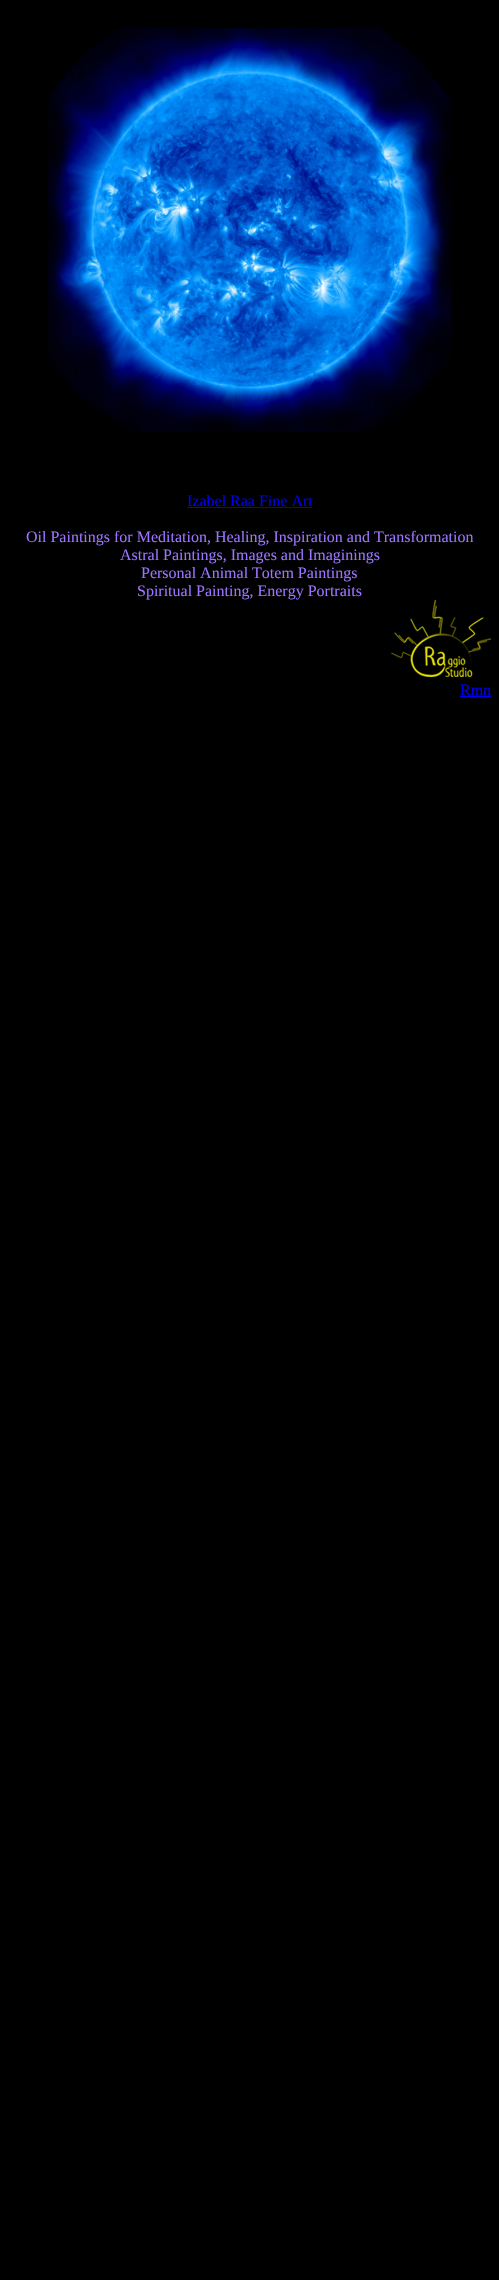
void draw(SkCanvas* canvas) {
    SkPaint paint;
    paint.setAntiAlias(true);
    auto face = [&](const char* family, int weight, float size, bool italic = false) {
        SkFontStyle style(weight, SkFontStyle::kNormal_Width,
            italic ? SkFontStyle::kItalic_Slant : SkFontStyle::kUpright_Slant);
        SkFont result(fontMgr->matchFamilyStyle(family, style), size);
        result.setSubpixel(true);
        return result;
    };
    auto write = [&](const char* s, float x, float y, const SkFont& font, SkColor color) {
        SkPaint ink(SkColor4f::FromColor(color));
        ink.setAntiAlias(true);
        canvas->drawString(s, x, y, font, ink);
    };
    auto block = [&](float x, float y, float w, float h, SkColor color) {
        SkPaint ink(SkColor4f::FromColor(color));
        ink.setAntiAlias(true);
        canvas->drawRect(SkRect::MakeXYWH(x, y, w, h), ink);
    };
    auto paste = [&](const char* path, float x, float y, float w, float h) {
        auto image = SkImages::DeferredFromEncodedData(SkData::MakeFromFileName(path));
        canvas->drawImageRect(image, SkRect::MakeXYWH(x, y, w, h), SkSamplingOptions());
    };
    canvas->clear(SK_ColorBLACK);
    paste("pic1.png", 47, 27, 405, 406);
    auto kFont1 = face("Liberation Serif", 400, 16);
    write("Izabel Raa Fine Art", 187, 506, kFont1, SkColorSetRGB(0, 0, 238));
    block(187, 507, 125, 1, SkColorSetRGB(0, 0, 238));
    write("Oil Paintings for Meditation, Healing, Inspiration and Transformation", 26, 542, kFont1, SkColorSetRGB(155, 116, 255));
    write("Astral Paintings, Images and Imaginings", 120, 560, kFont1, SkColorSetRGB(155, 116, 255));
    write("Personal Animal Totem Paintings", 141, 578, kFont1, SkColorSetRGB(155, 116, 255));
    write("Spiritual Painting, Energy Portraits", 137, 596, kFont1, SkColorSetRGB(155, 116, 255));
    paste("pic2.png", 391, 600, 100, 77);
    write("Rmn", 460, 695, kFont1, SkColorSetRGB(0, 0, 238));
    block(460, 696, 31, 1, SkColorSetRGB(0, 0, 238));
}
